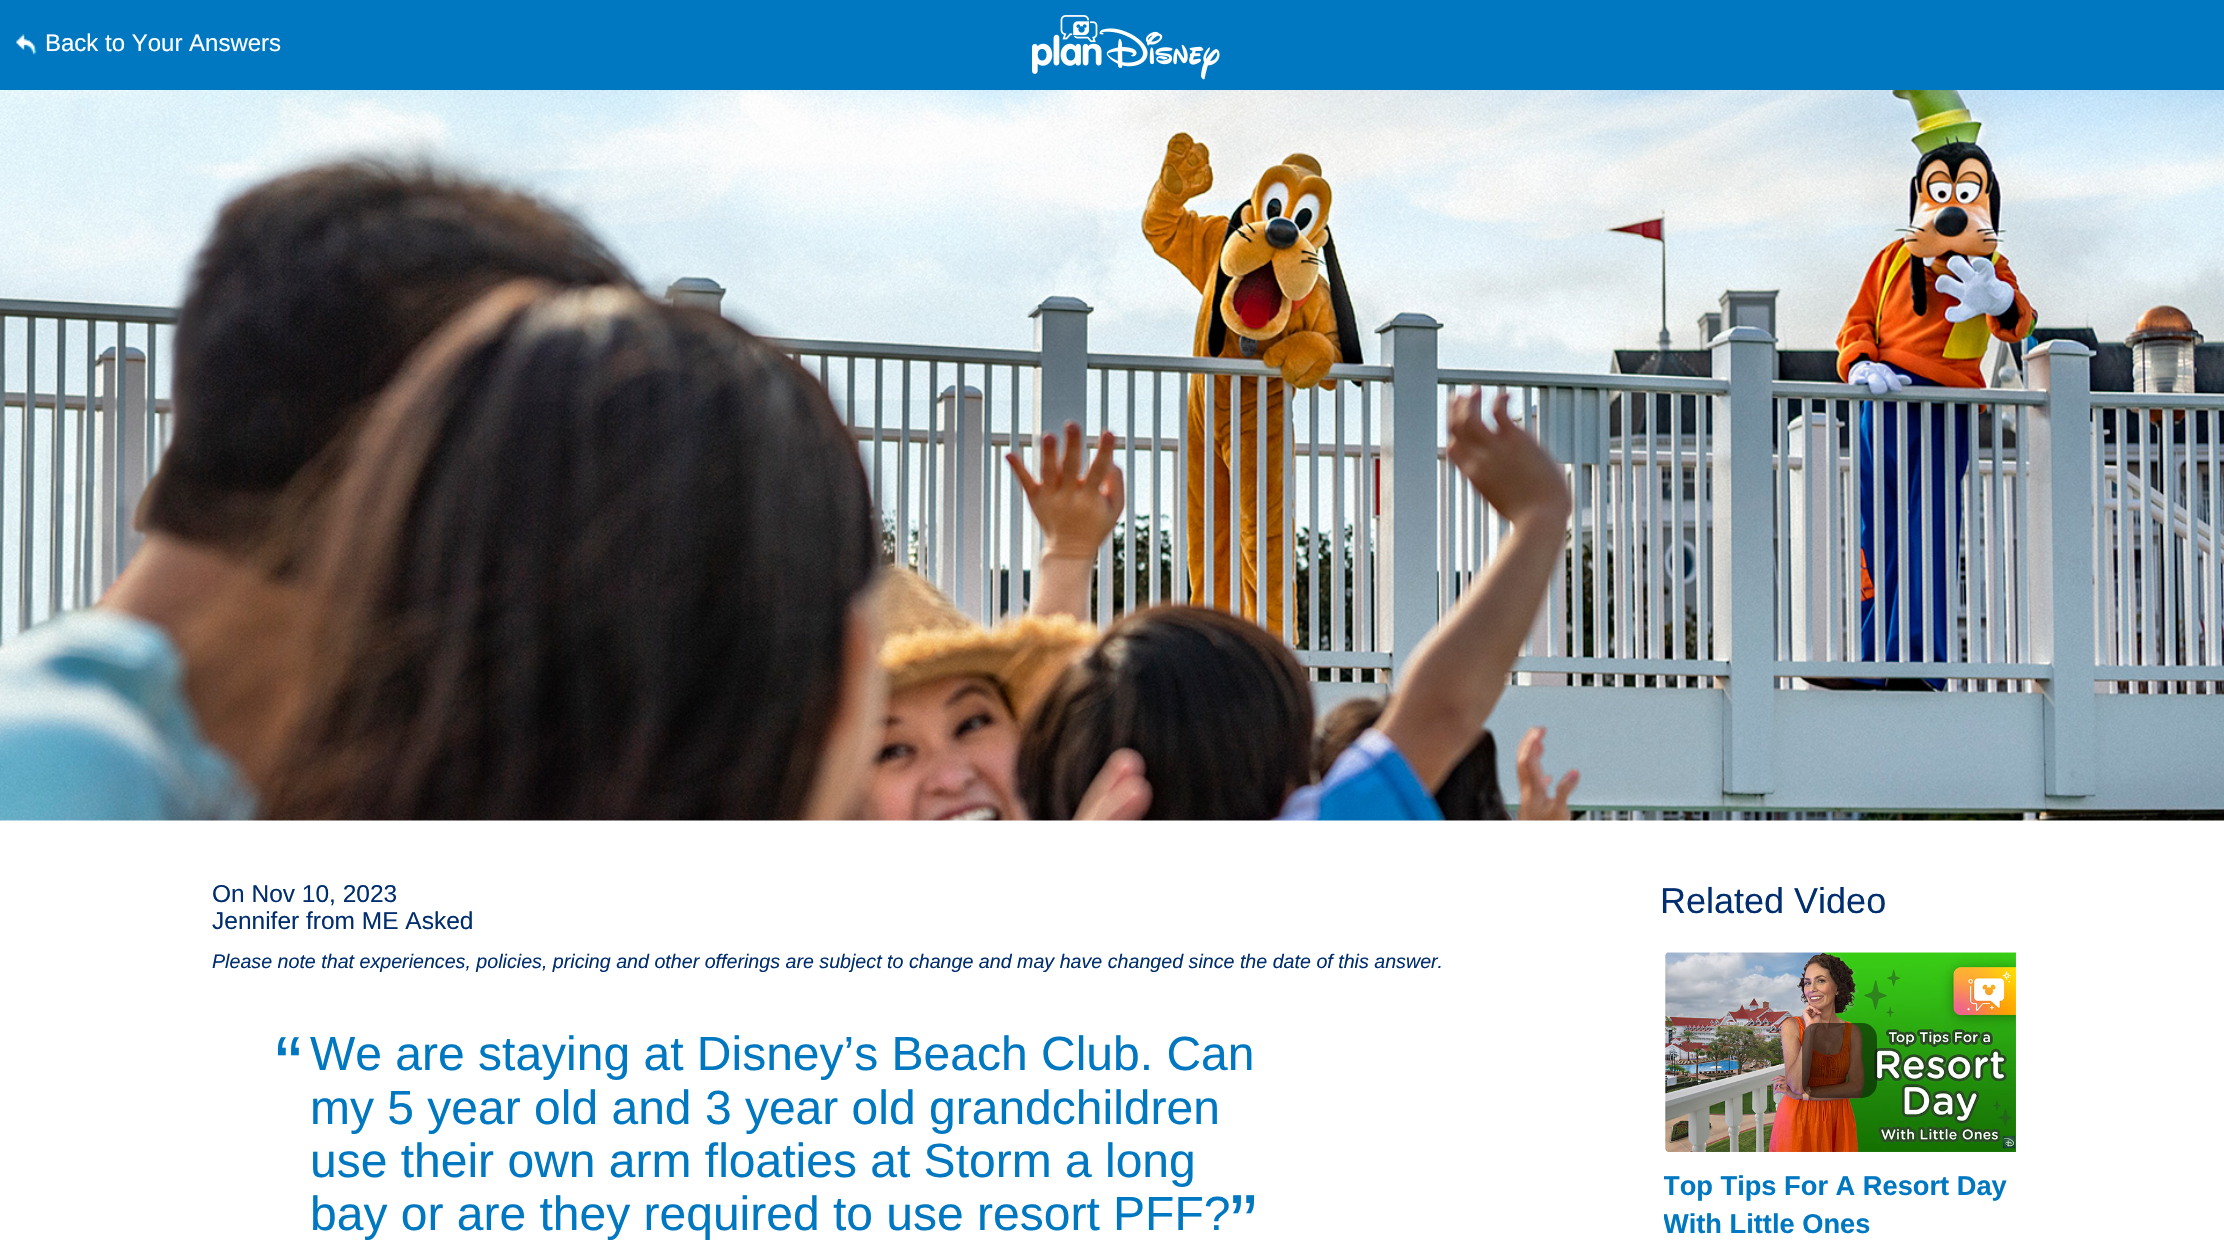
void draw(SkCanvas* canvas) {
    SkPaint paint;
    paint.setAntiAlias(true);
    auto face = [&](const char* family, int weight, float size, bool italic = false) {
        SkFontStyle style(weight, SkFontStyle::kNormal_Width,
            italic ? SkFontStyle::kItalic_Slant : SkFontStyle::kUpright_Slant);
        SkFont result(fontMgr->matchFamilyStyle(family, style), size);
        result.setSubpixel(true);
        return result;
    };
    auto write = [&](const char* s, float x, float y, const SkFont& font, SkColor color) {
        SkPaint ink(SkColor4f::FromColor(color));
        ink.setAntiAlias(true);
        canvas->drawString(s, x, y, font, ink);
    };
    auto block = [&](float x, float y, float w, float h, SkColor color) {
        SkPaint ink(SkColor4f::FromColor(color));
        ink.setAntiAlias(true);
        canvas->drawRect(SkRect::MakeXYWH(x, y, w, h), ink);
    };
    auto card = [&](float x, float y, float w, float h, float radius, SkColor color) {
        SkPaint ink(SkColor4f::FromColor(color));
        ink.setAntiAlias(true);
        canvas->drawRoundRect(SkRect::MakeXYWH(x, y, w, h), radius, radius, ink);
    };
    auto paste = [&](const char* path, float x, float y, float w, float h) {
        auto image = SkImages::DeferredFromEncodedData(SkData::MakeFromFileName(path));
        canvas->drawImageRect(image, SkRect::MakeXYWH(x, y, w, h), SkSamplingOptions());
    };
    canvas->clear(SK_ColorWHITE);
    block(0, 0, 2224, 90, SkColorSetRGB(0, 120, 193));
    paste("pic1.png", 16, 34, 21, 21);
    auto kFont1 = face("Liberation Sans", 400, 24);
    write("Back to Your Answers", 45, 51, kFont1, SK_ColorWHITE);
    paste("pic2.png", 1032, 15, 188, 65);
    paste("pic3.png", 0, 90, 2224, 731);
    auto kFont2 = face("Liberation Sans", 400, 24.5f);
    write("On Nov 10, 2023", 212, 902, kFont2, SkColorSetRGB(0, 46, 110));
    write("Jennifer from ME Asked", 212, 929, kFont2, SkColorSetRGB(0, 46, 110));
    auto kFont3 = face("Liberation Sans", 400, 19.65f, true);
    write("Please note that experiences, policies, pricing and other offerings are subject to change and may have changed since the date of this answer.", 212, 968, kFont3, SkColorSetRGB(0, 46, 110));
    auto kFont4 = face("Liberation Sans", 400, 81);
    write("“", 275, 1093, kFont4, SkColorSetRGB(0, 120, 193));
    auto kFont5 = face("Liberation Sans", 400, 48);
    write("We are staying at Disney’s Beach Club. Can", 310, 1070, kFont5, SkColorSetRGB(0, 120, 193));
    write("my 5 year old and 3 year old grandchildren", 310, 1124, kFont5, SkColorSetRGB(0, 120, 193));
    write("use their own arm floaties at Storm a long", 310, 1177, kFont5, SkColorSetRGB(0, 120, 193));
    write("bay or are they required to use resort PFF?", 310, 1230, kFont5, SkColorSetRGB(0, 120, 193));
    write("”", 1230, 1251, kFont4, SkColorSetRGB(0, 120, 193));
    auto kFont6 = face("Liberation Sans", 400, 36);
    write("Related Video", 1660, 913, kFont6, SkColorSetRGB(0, 46, 110));
    paste("pic4.png", 1665, 952, 351, 200);
    card(1802, 1023, 75, 75, 15, SkColorSetARGB(128, 0, 0, 0));
    canvas->save();
    canvas->clipRect(SkRect::MakeXYWH(1664, 1169, 352, 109));
    auto kFont7 = face("Liberation Sans", 700, 27.25f);
    write("Top Tips For A Resort Day", 1663, 1195, kFont7, SkColorSetRGB(0, 120, 193));
    write("With Little Ones", 1663, 1233, kFont7, SkColorSetRGB(0, 120, 193));
    canvas->restore();
}
